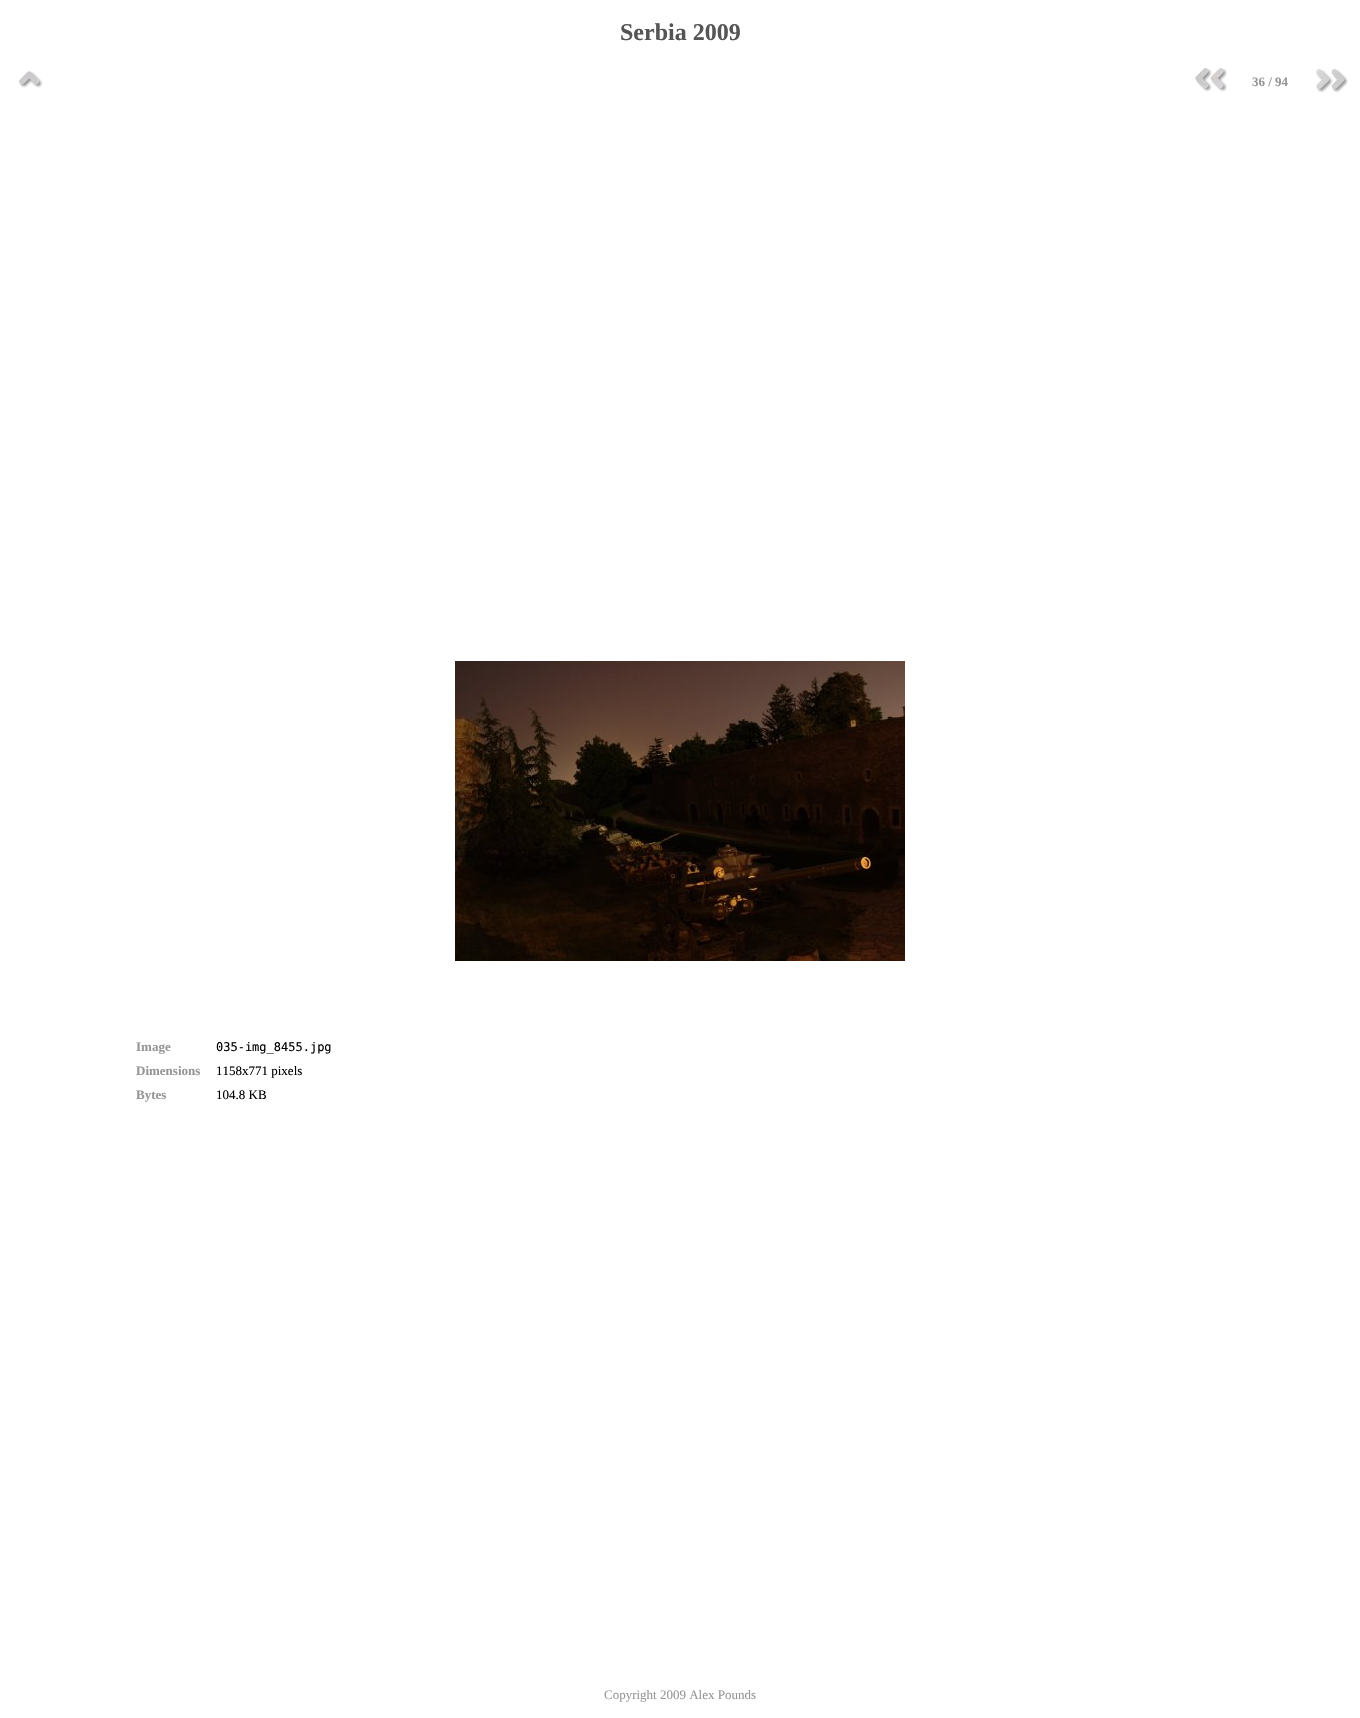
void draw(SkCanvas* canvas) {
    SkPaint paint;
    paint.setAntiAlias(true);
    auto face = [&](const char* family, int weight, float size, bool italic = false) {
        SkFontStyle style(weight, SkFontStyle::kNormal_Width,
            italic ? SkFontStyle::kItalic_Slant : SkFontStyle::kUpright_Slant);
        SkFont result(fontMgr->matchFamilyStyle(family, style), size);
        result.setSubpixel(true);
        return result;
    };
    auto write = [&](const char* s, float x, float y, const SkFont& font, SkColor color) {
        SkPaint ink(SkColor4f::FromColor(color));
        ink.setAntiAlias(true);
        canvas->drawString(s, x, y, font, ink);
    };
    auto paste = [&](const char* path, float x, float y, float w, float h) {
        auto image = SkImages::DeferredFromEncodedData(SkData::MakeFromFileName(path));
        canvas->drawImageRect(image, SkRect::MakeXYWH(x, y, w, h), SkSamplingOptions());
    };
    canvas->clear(SK_ColorWHITE);
    auto kFont1 = face("Liberation Serif", 700, 24);
    write("Serbia 2009", 620, 40, kFont1, SkColorSetRGB(85, 85, 85));
    paste("pic1.png", 19, 71, 24, 17);
    paste("pic2.png", 1195, 68, 32, 24);
    auto kFont2 = face("Liberation Serif", 700, 13);
    write("36 / 94", 1252, 86, kFont2, SkColorSetRGB(150, 150, 150));
    paste("pic3.png", 1316, 69, 32, 24);
    paste("pic4.png", 455, 661, 450, 300);
    write("Image", 136, 1051, kFont2, SkColorSetRGB(150, 150, 150));
    auto kFont3 = face("DejaVu Sans Mono", 400, 12);
    write("035-img_8455.jpg", 216, 1051, kFont3, SK_ColorBLACK);
    write("Dimensions", 136, 1075, kFont2, SkColorSetRGB(150, 150, 150));
    auto kFont4 = face("Liberation Serif", 400, 13);
    write("1158x771 pixels", 216, 1075, kFont4, SK_ColorBLACK);
    write("Bytes", 136, 1099, kFont2, SkColorSetRGB(150, 150, 150));
    write("104.8 KB", 216, 1099, kFont4, SK_ColorBLACK);
    write("Copyright 2009 Alex Pounds", 604, 1699, kFont4, SkColorSetRGB(150, 150, 150));
}
